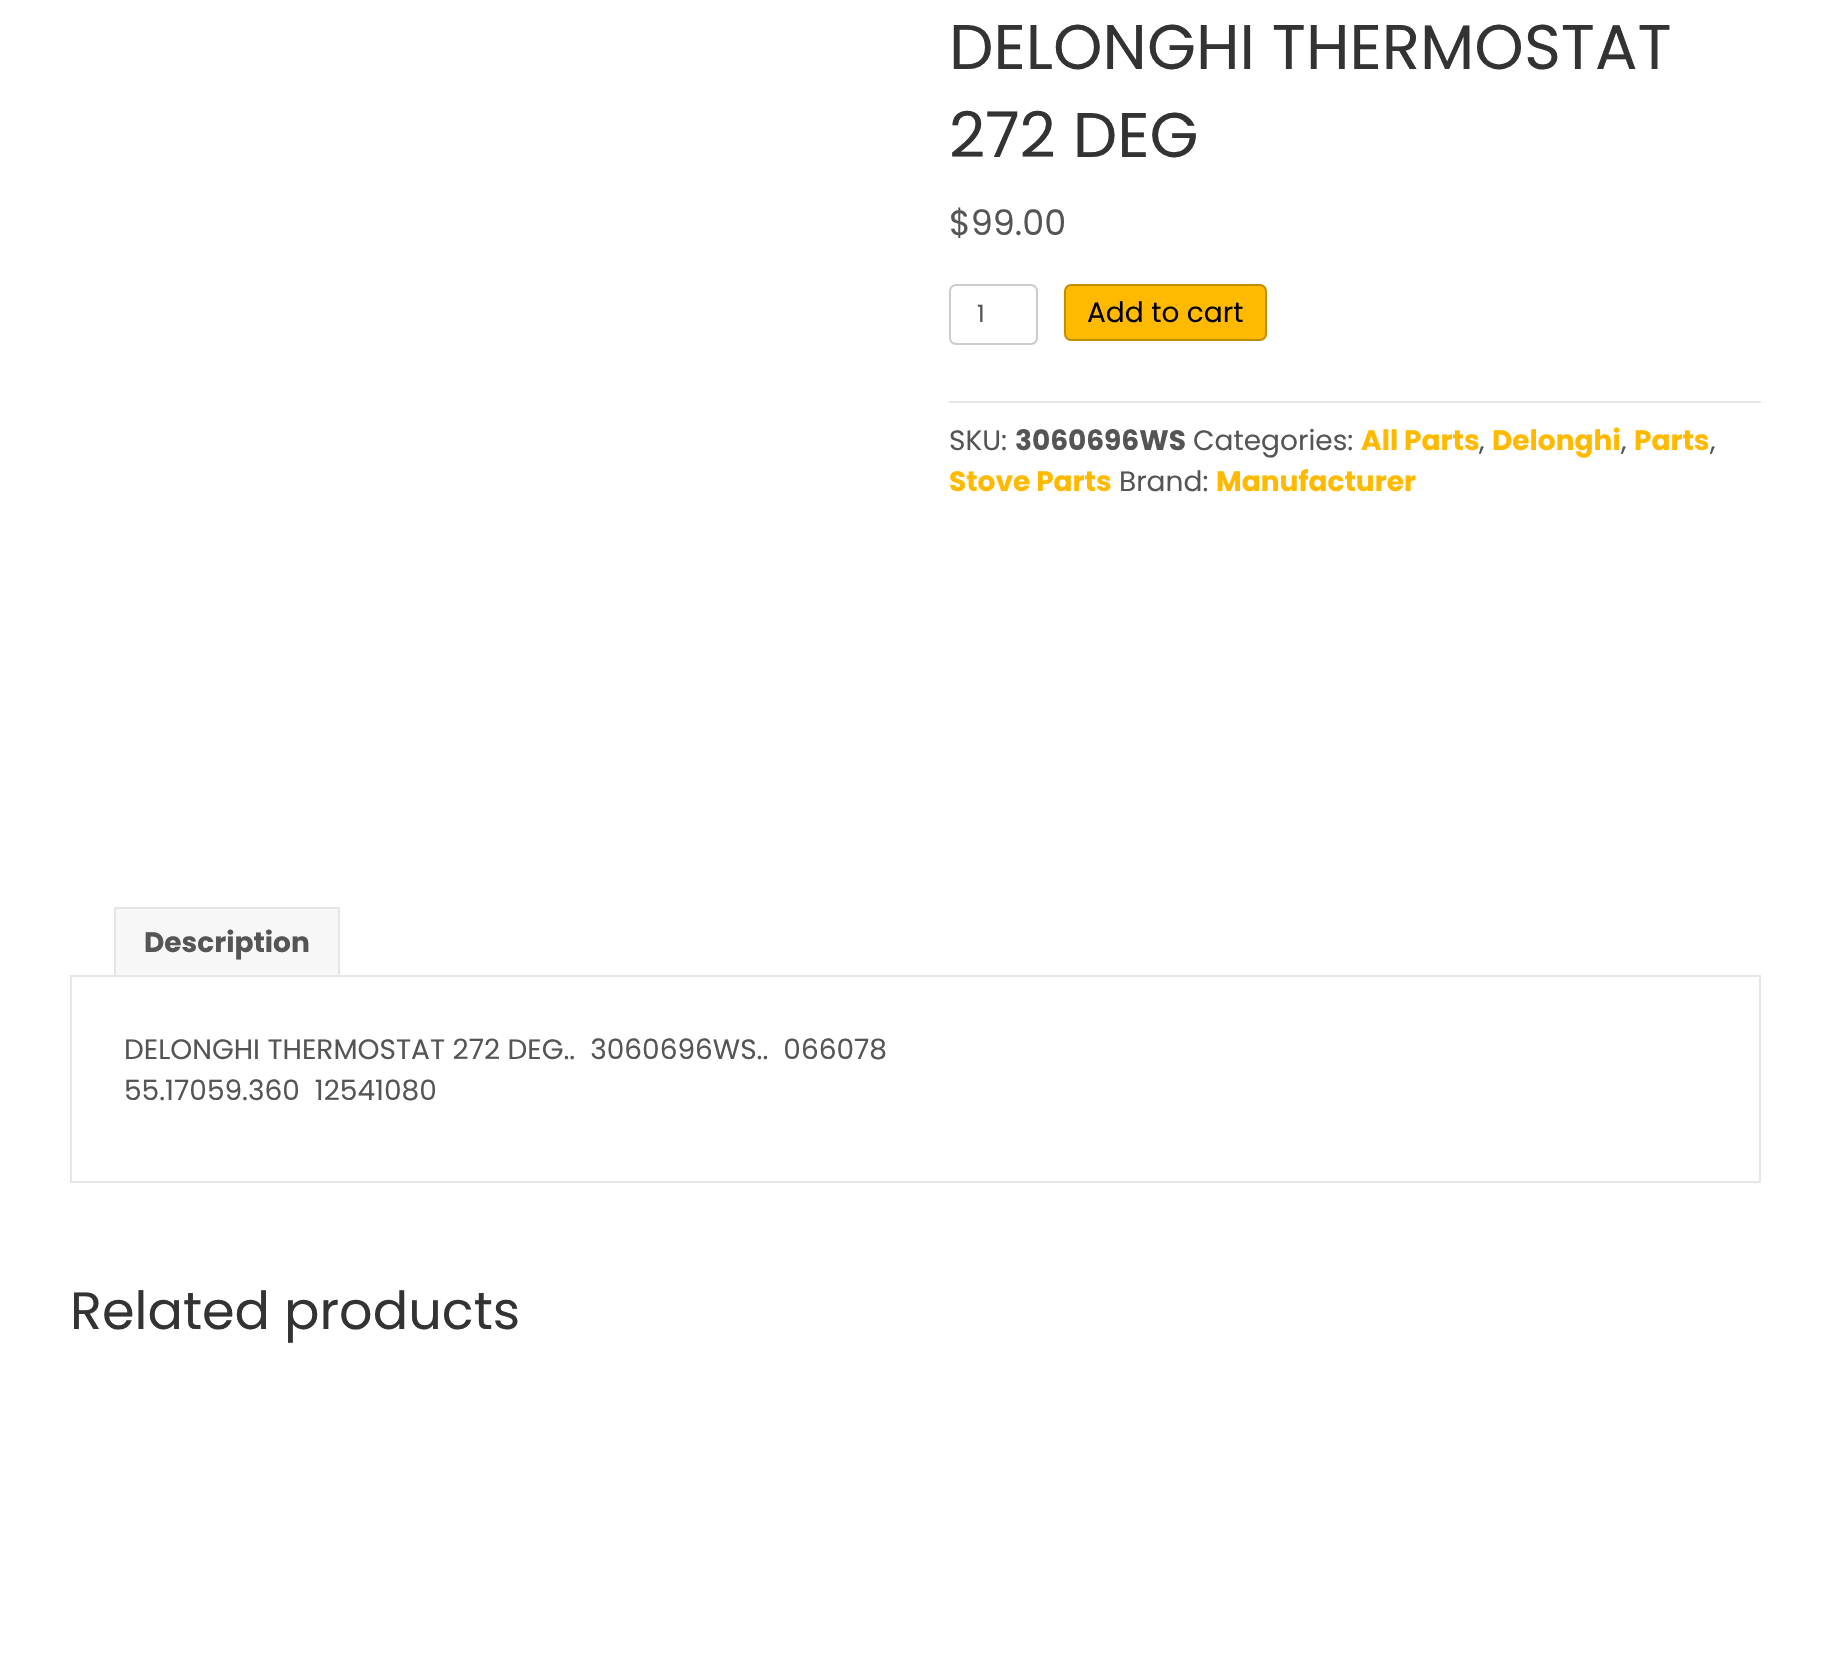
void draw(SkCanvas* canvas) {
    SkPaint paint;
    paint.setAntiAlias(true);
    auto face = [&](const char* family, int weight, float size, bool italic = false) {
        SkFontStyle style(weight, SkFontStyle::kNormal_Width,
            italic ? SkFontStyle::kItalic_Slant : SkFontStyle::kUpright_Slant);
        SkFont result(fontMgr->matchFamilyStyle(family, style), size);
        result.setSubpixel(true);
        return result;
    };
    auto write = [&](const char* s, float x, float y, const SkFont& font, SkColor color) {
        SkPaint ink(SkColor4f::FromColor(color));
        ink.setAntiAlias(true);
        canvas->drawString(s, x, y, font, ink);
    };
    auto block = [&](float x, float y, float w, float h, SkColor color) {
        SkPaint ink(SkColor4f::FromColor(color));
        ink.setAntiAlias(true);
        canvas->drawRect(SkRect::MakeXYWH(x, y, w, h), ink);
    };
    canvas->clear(SK_ColorWHITE);
    auto kFont1 = face("Poppins", 400, 63);
    write("DELONGHI THERMOSTAT", 949, 69, kFont1, SkColorSetRGB(51, 51, 51));
    write("272 DEG", 949, 157, kFont1, SkColorSetRGB(51, 51, 51));
    auto kFont2 = face("Poppins", 400, 35);
    write("$99.00", 949, 235, kFont2, SkColorSetRGB(85, 85, 85));
    paint.setStyle(SkPaint::kStroke_Style);
    paint.setStrokeWidth(2);
    paint.setColor(SkColorSetRGB(204, 204, 204));
    canvas->drawRoundRect(SkRect::MakeXYWH(950, 285, 87, 59), 6, 6, paint);
    auto kFont3 = face("Poppins", 400, 24);
    write("1", 977, 322, kFont3, SkColorSetRGB(85, 85, 85));
    paint.setStyle(SkPaint::kFill_Style);
    paint.setColor(SkColorSetRGB(255, 186, 0));
    canvas->drawRoundRect(SkRect::MakeXYWH(1065, 285, 201, 55), 6, 6, paint);
    paint.setStyle(SkPaint::kStroke_Style);
    paint.setColor(SkColorSetRGB(194, 141, 0));
    canvas->drawRoundRect(SkRect::MakeXYWH(1065, 285, 201, 55), 6, 6, paint);
    auto kFont4 = face("Poppins", 400, 28);
    write("Add to cart", 1087, 322, kFont4, SK_ColorBLACK);
    block(949, 401, 812, 2, SkColorSetRGB(230, 230, 230));
    write("SKU:", 949, 450, kFont4, SkColorSetRGB(85, 85, 85));
    auto kFont5 = face("Poppins", 700, 28);
    write("3060696WS", 1015, 450, kFont5, SkColorSetRGB(85, 85, 85));
    write("Categories:", 1193, 450, kFont4, SkColorSetRGB(85, 85, 85));
    write("All Parts", 1361, 450, kFont5, SkColorSetRGB(255, 186, 0));
    write(",", 1479, 450, kFont4, SkColorSetRGB(85, 85, 85));
    write("Delonghi", 1492, 450, kFont5, SkColorSetRGB(255, 186, 0));
    write(",", 1621, 450, kFont4, SkColorSetRGB(85, 85, 85));
    write("Parts", 1634, 450, kFont5, SkColorSetRGB(255, 186, 0));
    write(",", 1710, 450, kFont4, SkColorSetRGB(85, 85, 85));
    write("Stove Parts", 949, 491, kFont5, SkColorSetRGB(255, 186, 0));
    write("Brand:", 1119, 491, kFont4, SkColorSetRGB(85, 85, 85));
    write("Manufacturer", 1216, 491, kFont5, SkColorSetRGB(255, 186, 0));
    block(116, 909, 222, 66, SkColorSetRGB(247, 247, 247));
    block(114, 907, 226, 2, SkColorSetRGB(230, 230, 230));
    block(338, 907, 2, 70, SkColorSetRGB(230, 230, 230));
    block(114, 907, 2, 70, SkColorSetRGB(230, 230, 230));
    write("Description", 144, 952, kFont5, SkColorSetRGB(85, 85, 85));
    block(70, 975, 1691, 2, SkColorSetRGB(230, 230, 230));
    block(1759, 977, 2, 206, SkColorSetRGB(230, 230, 230));
    block(70, 1181, 1691, 2, SkColorSetRGB(230, 230, 230));
    block(70, 977, 2, 206, SkColorSetRGB(230, 230, 230));
    write("DELONGHI THERMOSTAT 272 DEG..  3060696WS..  066078", 124, 1059, kFont4, SkColorSetRGB(85, 85, 85));
    write("55.17059.360  12541080", 124, 1100, kFont4, SkColorSetRGB(85, 85, 85));
    auto kFont6 = face("Poppins", 400, 52.5f);
    write("Related products", 70, 1329, kFont6, SkColorSetRGB(51, 51, 51));
}
